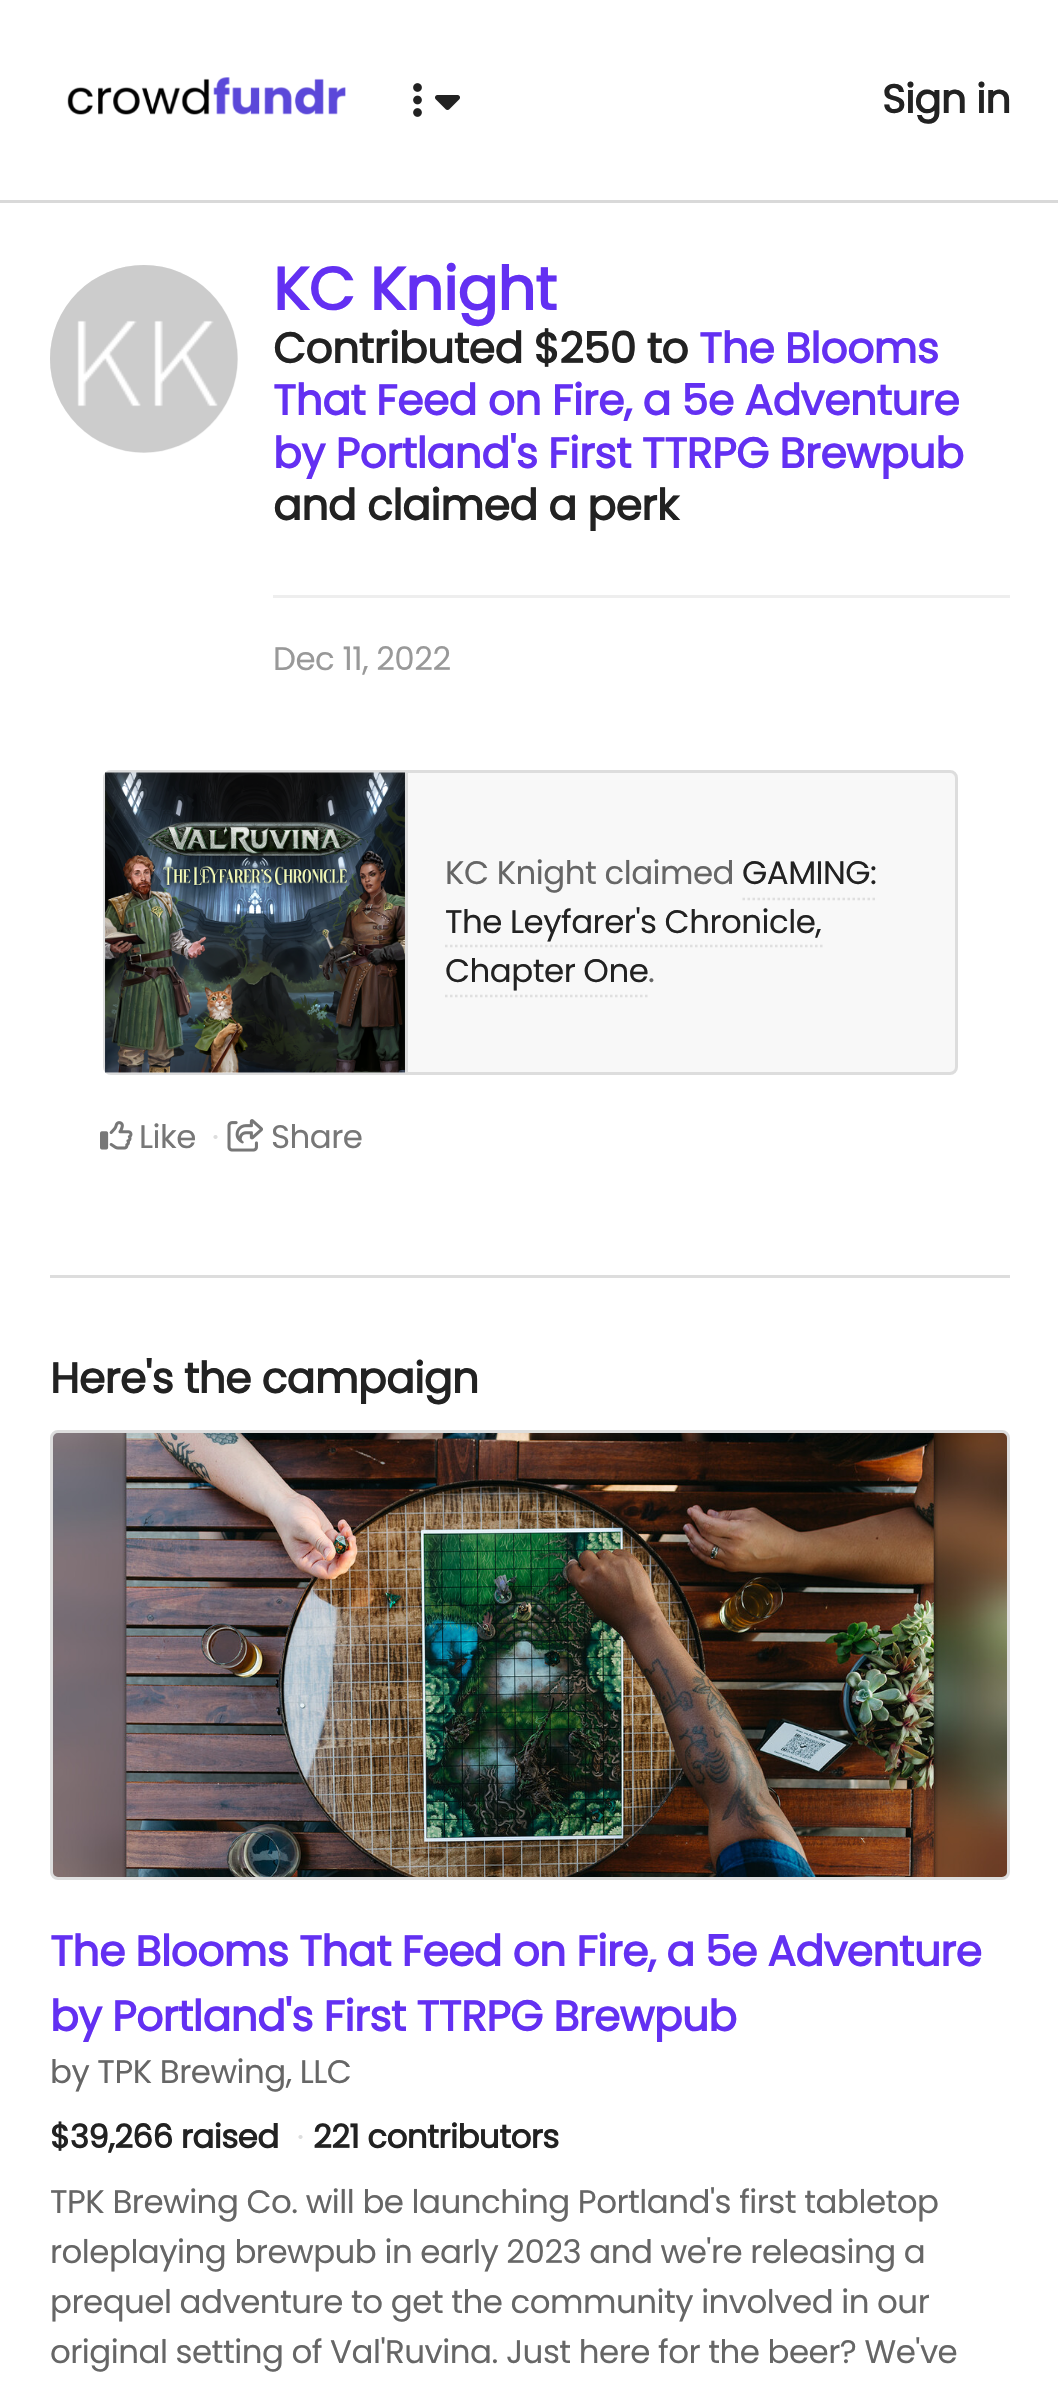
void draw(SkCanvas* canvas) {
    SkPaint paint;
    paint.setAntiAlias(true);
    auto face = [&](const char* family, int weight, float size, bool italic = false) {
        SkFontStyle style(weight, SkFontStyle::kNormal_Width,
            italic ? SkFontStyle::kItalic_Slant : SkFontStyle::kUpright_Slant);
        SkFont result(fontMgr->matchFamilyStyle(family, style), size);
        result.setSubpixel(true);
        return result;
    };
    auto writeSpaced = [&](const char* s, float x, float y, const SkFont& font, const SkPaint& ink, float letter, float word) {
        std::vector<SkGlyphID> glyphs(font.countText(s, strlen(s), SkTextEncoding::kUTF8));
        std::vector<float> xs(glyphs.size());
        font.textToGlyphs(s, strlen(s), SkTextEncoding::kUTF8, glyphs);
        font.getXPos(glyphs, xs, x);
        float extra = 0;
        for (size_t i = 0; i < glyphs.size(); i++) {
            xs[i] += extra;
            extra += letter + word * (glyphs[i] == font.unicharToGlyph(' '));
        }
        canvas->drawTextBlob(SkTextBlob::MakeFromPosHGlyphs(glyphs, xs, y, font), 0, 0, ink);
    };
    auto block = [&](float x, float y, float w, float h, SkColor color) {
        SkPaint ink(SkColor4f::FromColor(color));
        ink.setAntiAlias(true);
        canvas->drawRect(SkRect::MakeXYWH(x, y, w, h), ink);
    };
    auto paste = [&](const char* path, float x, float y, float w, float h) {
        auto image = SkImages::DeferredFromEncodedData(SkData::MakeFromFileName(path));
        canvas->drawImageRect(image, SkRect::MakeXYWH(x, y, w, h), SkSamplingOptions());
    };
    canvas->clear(SK_ColorWHITE);
    block(0, 200, 1058, 3, SkColorSetRGB(217, 217, 217));
    paste("pic1.png", 67, 77, 279, 38);
    paste("pic2.png", 413, 83, 9, 34);
    paste("pic3.png", 435, 95, 25, 15);
    auto kFont1 = face("Poppins", 700, 40);
    paint.setColor(SkColorSetRGB(34, 34, 34));
    writeSpaced("Sign in", 882, 113, kFont1, paint, -0.53f, 0);
    block(50, 1275, 960, 3, SkColorSetRGB(221, 221, 221));
    paint.setColor(SkColorSetRGB(238, 238, 238));
    canvas->drawCircle(144, 359, 94, paint);
    paste("pic4.png", 50, 265, 188, 188);
    auto kFont2 = face("Poppins", 700, 60);
    paint.setColor(SkColorSetRGB(99, 48, 242));
    writeSpaced("KC Knight", 273, 310, kFont2, paint, -0.53f, 0);
    auto kFont3 = face("Poppins", 700, 42.5f);
    paint.setColor(SkColorSetRGB(34, 34, 34));
    writeSpaced("Contributed $250 to", 273, 363, kFont3, paint, -0.53f, 0);
    paint.setColor(SkColorSetRGB(99, 48, 242));
    writeSpaced("The Blooms", 699, 363, kFont3, paint, -0.53f, 0);
    writeSpaced("That Feed on Fire, a 5e Adventure", 273, 415, kFont3, paint, -0.53f, 0);
    writeSpaced("by Portland's First TTRPG Brewpub", 273, 468, kFont3, paint, -0.53f, 0);
    paint.setColor(SkColorSetRGB(34, 34, 34));
    writeSpaced("and claimed a perk", 273, 520, kFont3, paint, -0.53f, 0);
    block(273, 595, 737, 3, SkColorSetRGB(238, 238, 238));
    auto kFont4 = face("Poppins", 400, 32.5f);
    paint.setColor(SkColorSetRGB(153, 153, 153));
    writeSpaced("Dec 11, 2022", 273, 670, kFont4, paint, -0.53f, 0);
    paint.setColor(SkColorSetRGB(248, 248, 248));
    canvas->drawRoundRect(SkRect::MakeXYWH(104.5f, 771.5f, 852, 302), 6.5f, 6.5f, paint);
    paint.setStyle(SkPaint::kStroke_Style);
    paint.setStrokeWidth(3);
    paint.setColor(SkColorSetRGB(221, 221, 221));
    canvas->drawRoundRect(SkRect::MakeXYWH(104.5f, 771.5f, 852, 302), 6.5f, 6.5f, paint);
    block(105, 1072, 300, 1, SK_ColorWHITE);
    block(405, 773, 3, 300, SkColorSetRGB(221, 221, 221));
    paste("pic5.png", 105, 772, 300, 301);
    paint.setStyle(SkPaint::kFill_Style);
    paint.setColor(SkColorSetRGB(102, 102, 102));
    writeSpaced("KC Knight claimed", 445, 884, kFont4, paint, -0.53f, 0);
    paint.setColor(SkColorSetRGB(34, 34, 34));
    writeSpaced("GAMING:", 742, 884, kFont4, paint, -0.53f, 0);
    writeSpaced("The Leyfarer's Chronicle,", 445, 933, kFont4, paint, -0.53f, 0);
    paint.setStyle(SkPaint::kStroke_Style);
    paint.setStrokeWidth(2.5f);
    paint.setColor(SkColorSetRGB(223, 223, 223));
    paint.setPathEffect(SkDashPathEffect::Make({{2.5f, 2.5f}}, 0));
    canvas->drawPath(SkPathBuilder().moveTo(742.5f, 899).lineTo(877.5f, 899).detach(), paint);
    paint.setPathEffect(nullptr);
    paint.setPathEffect(SkDashPathEffect::Make({{2.5f, 2.5f}}, 0));
    canvas->drawPath(SkPathBuilder().moveTo(445, 946).lineTo(822.5f, 946).detach(), paint);
    paint.setPathEffect(nullptr);
    paint.setStyle(SkPaint::kFill_Style);
    paint.setColor(SkColorSetRGB(34, 34, 34));
    writeSpaced("Chapter One", 445, 982, kFont4, paint, -0.53f, 0);
    paint.setColor(SkColorSetRGB(102, 102, 102));
    writeSpaced(".", 648, 982, kFont4, paint, -0.53f, 0);
    paint.setStyle(SkPaint::kStroke_Style);
    paint.setColor(SkColorSetRGB(223, 223, 223));
    paint.setPathEffect(SkDashPathEffect::Make({{2.5f, 2.5f}}, 0));
    canvas->drawPath(SkPathBuilder().moveTo(445, 996).lineTo(647.5f, 996).detach(), paint);
    paint.setPathEffect(nullptr);
    paste("pic6.png", 100, 1121, 33, 29);
    paint.setStyle(SkPaint::kFill_Style);
    paint.setColor(SkColorSetRGB(119, 119, 119));
    writeSpaced("Like", 139, 1148, kFont4, paint, -0.53f, 0);
    paint.setColor(SkColorSetRGB(221, 221, 221));
    writeSpaced("·", 212, 1148, kFont4, paint, -0.53f, 0);
    paste("pic7.png", 227, 1119, 36, 33);
    paint.setColor(SkColorSetRGB(119, 119, 119));
    writeSpaced("Share", 271, 1148, kFont4, paint, -0.53f, 0);
    paint.setColor(SkColorSetRGB(34, 34, 34));
    writeSpaced("Here's the campaign", 50, 1393, kFont3, paint, -0.65f, 0);
    paste("pic8.png", 53, 1433, 954, 444);
    paint.setStyle(SkPaint::kStroke_Style);
    paint.setStrokeWidth(3);
    paint.setColor(SkColorSetRGB(221, 221, 221));
    canvas->drawRoundRect(SkRect::MakeXYWH(51.5f, 1431.5f, 957, 447), 6.5f, 6.5f, paint);
    paint.setStyle(SkPaint::kFill_Style);
    paint.setColor(SkColorSetRGB(99, 48, 242));
    writeSpaced("The Blooms That Feed on Fire, a 5e Adventure", 50, 1966, kFont3, paint, -0.65f, 0);
    writeSpaced("by Portland's First TTRPG Brewpub", 50, 2031, kFont3, paint, -0.65f, 0);
    paint.setColor(SkColorSetRGB(102, 102, 102));
    writeSpaced("by TPK Brewing, LLC", 50, 2083, kFont4, paint, -0.53f, 0);
    auto kFont5 = face("Poppins", 700, 32.5f);
    paint.setColor(SkColorSetRGB(34, 34, 34));
    writeSpaced("$39,266 raised", 50, 2148, kFont5, paint, -0.53f, 0);
    paint.setColor(SkColorSetRGB(221, 221, 221));
    writeSpaced("·", 297, 2148, kFont4, paint, -0.53f, 0);
    paint.setColor(SkColorSetRGB(34, 34, 34));
    writeSpaced("221 contributors", 313, 2148, kFont5, paint, -0.53f, 0);
    paint.setColor(SkColorSetRGB(102, 102, 102));
    writeSpaced("TPK Brewing Co. will be launching Portland's first tabletop", 50, 2213, kFont4, paint, -0.53f, 0);
    writeSpaced("roleplaying brewpub in early 2023 and we're releasing a", 50, 2263, kFont4, paint, -0.53f, 0);
    writeSpaced("prequel adventure to get the community involved in our", 50, 2313, kFont4, paint, -0.53f, 0);
    writeSpaced("original setting of Val'Ruvina. Just here for the beer? We've", 50, 2363, kFont4, paint, -0.53f, 0);
}
